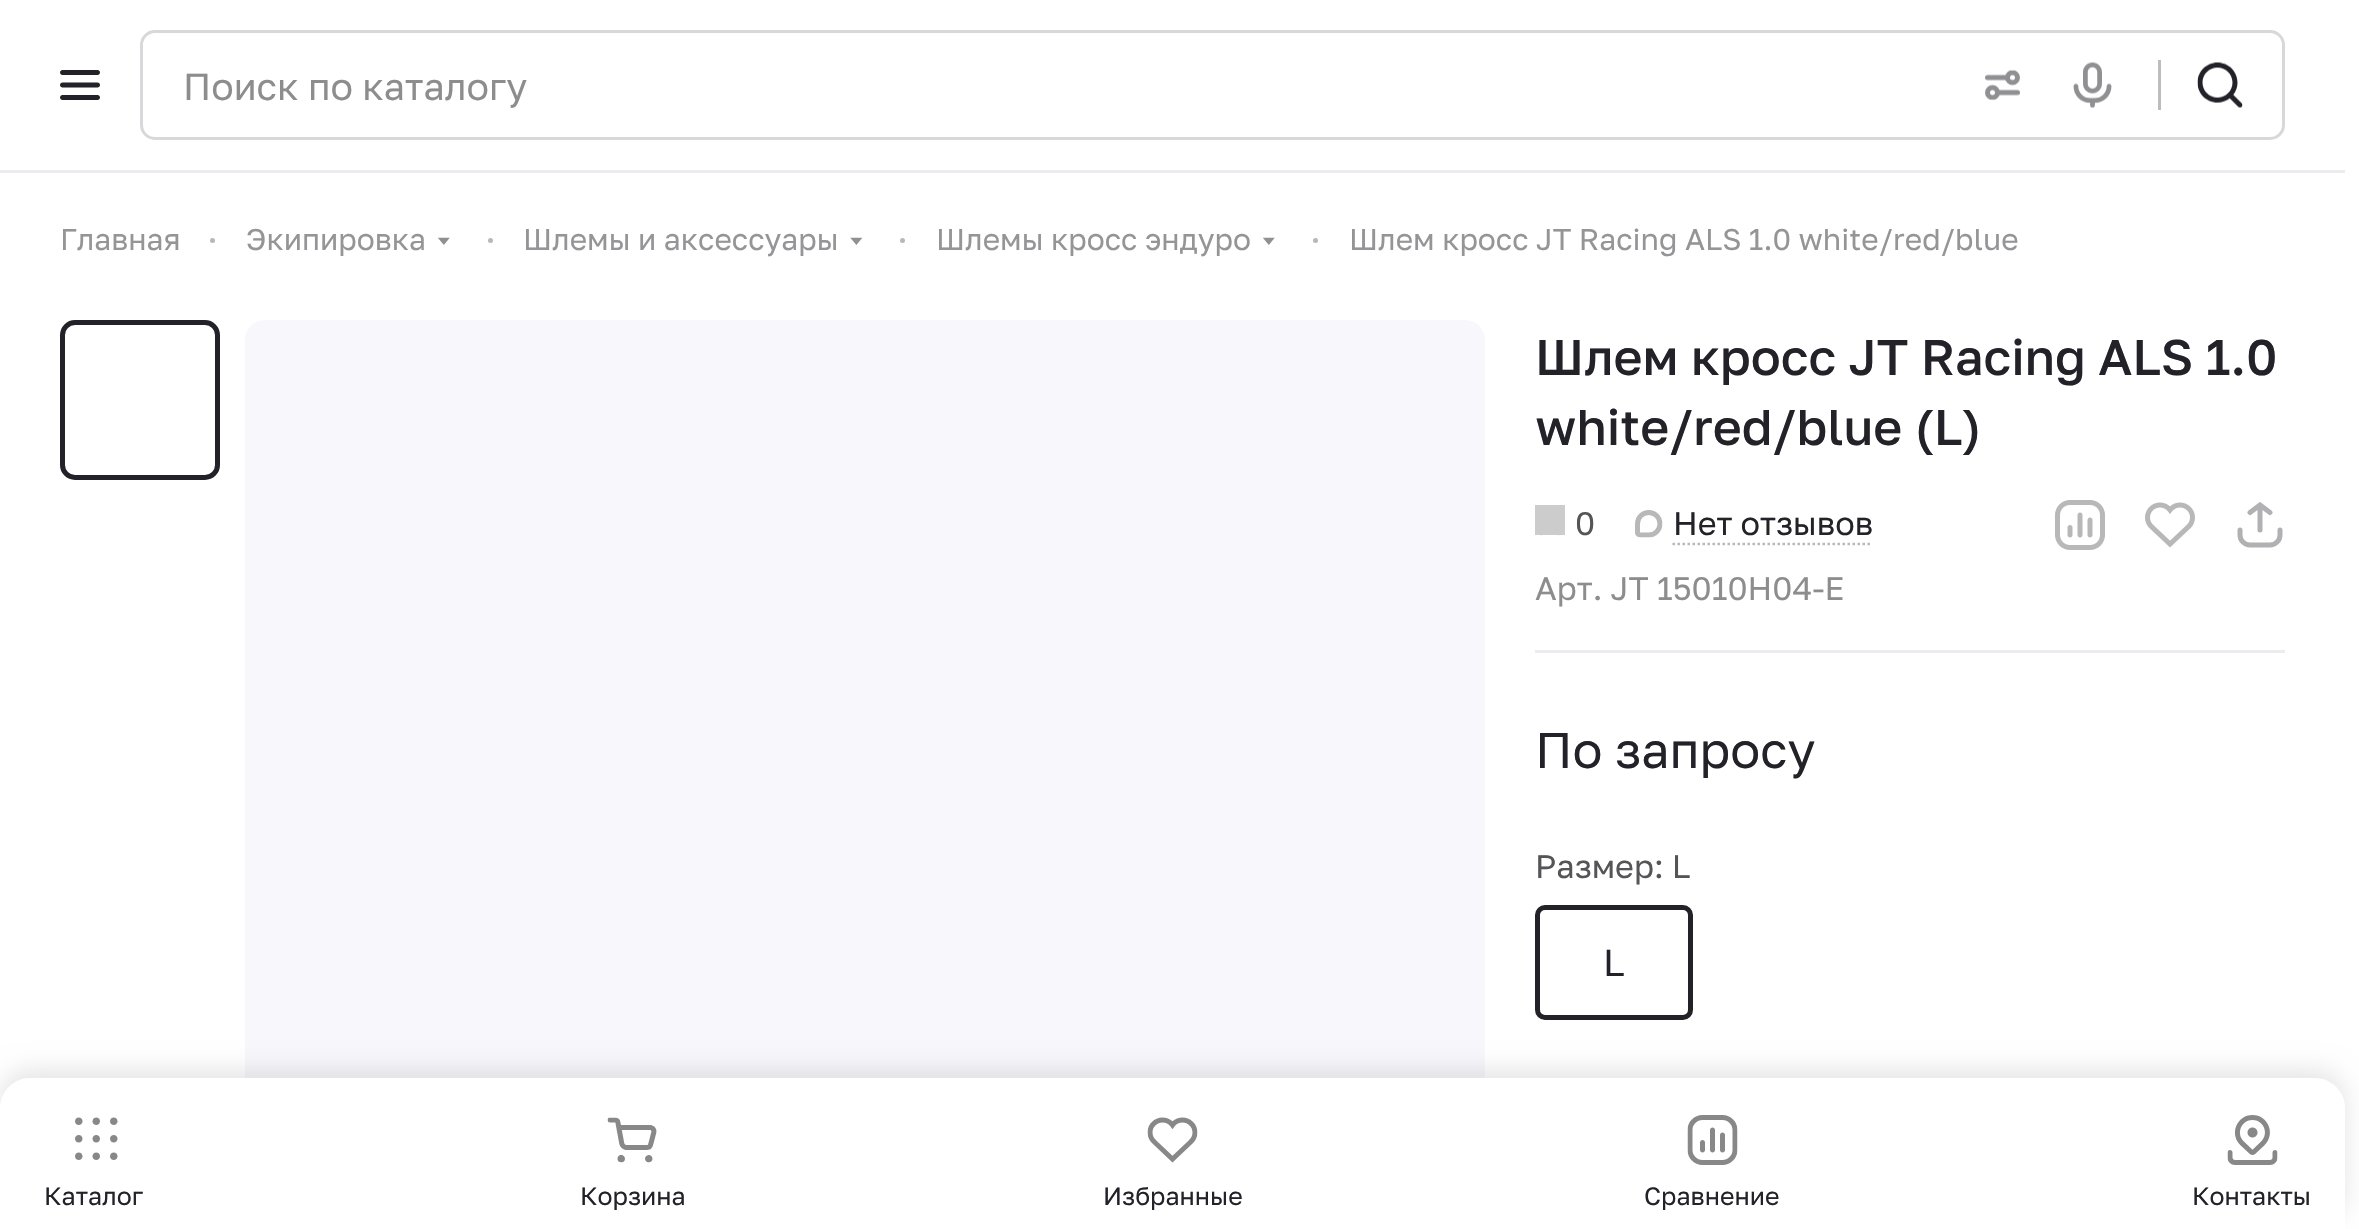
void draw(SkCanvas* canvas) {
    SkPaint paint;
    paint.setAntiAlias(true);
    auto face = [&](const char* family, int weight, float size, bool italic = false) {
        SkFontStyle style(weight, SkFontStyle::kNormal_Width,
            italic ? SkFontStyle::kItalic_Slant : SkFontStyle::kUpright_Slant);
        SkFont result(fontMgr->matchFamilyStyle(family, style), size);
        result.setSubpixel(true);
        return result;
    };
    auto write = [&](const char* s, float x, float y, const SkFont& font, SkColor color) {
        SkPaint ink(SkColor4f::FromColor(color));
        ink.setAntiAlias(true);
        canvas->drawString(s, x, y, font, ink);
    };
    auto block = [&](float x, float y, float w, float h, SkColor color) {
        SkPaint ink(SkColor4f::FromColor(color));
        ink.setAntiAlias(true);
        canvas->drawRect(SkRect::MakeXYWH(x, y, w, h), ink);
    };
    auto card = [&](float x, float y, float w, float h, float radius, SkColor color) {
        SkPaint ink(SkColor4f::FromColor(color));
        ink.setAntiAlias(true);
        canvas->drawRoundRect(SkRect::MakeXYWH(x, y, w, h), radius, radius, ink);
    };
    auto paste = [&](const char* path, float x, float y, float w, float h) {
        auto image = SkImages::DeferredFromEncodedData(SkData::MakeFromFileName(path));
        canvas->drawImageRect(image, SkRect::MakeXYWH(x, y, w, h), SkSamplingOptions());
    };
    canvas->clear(SK_ColorWHITE);
    block(0, 170, 2345, 3, SkColorSetRGB(235, 236, 239));
    paste("pic1.png", 60, 70, 40, 30);
    paint.setStyle(SkPaint::kStroke_Style);
    paint.setStrokeWidth(3);
    paint.setColor(SkColorSetRGB(215, 216, 218));
    canvas->drawRoundRect(SkRect::MakeXYWH(141.5f, 31.5f, 2142, 107), 13.5f, 13.5f, paint);
    auto kFont1 = face("Golos Text", 400, 37.5f);
    write("Поиск по каталогу", 183, 100, kFont1, SkColorSetRGB(141, 141, 141));
    paste("pic2.png", 1985, 69, 35, 32);
    paste("pic3.png", 2073, 62, 39, 46);
    block(2158, 60, 3, 50, SkColorSetRGB(189, 189, 191));
    paste("pic4.png", 2197, 62, 46, 46);
    auto kFont2 = face("Golos Text", 400, 30);
    write("Главная", 60, 250, kFont2, SkColorSetRGB(149, 149, 152));
    paint.setStyle(SkPaint::kFill_Style);
    paint.setColor(SkColorSetRGB(184, 184, 185));
    canvas->drawCircle(212.5f, 240.5f, 2.5f, paint);
    write("Экипировка", 246, 250, kFont2, SkColorSetRGB(149, 149, 152));
    paste("pic5.png", 438, 237, 12, 8);
    canvas->drawCircle(490.5f, 240.5f, 2.5f, paint);
    write("Шлемы и аксессуары", 523, 250, kFont2, SkColorSetRGB(149, 149, 152));
    paste("pic6.png", 850, 237, 13, 8);
    canvas->drawCircle(902.5f, 240.5f, 2.5f, paint);
    write("Шлемы кросс эндуро", 936, 250, kFont2, SkColorSetRGB(149, 149, 152));
    paste("pic7.png", 1263, 237, 12, 8);
    canvas->drawCircle(1315.5f, 240.5f, 2.5f, paint);
    write("Шлем кросс JT Racing ALS 1.0 white/red/blue", 1349, 250, kFont2, SkColorSetRGB(149, 149, 152));
    paint.setStyle(SkPaint::kStroke_Style);
    paint.setStrokeWidth(5);
    paint.setColor(SkColorSetRGB(34, 34, 40));
    canvas->drawRoundRect(SkRect::MakeXYWH(62.5f, 322.5f, 155, 155), 12.5f, 12.5f, paint);
    card(245, 320, 1240, 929, 20, SkColorSetRGB(248, 248, 252));
    auto kFont3 = face("Golos Text", 500, 50);
    write("Шлем кросс JT Racing ALS 1.0", 1535, 375, kFont3, SkColorSetRGB(34, 34, 40));
    write("white/red/blue (L)", 1535, 445, kFont3, SkColorSetRGB(34, 34, 40));
    paste("pic8.png", 1540, 535, 20, 1);
    block(1535, 505, 30, 30, SkColorSetRGB(204, 204, 204));
    auto kFont4 = face("Golos Text", 400, 32.5f);
    write("0", 1575, 535, kFont4, SkColorSetRGB(85, 85, 88));
    paste("pic9.png", 1635, 510, 28, 28);
    write("Нет отзывов", 1673, 535, kFont4, SkColorSetRGB(34, 34, 40));
    paint.setStrokeWidth(2.5f);
    paint.setColor(SkColorSetRGB(184, 184, 186));
    paint.setPathEffect(SkDashPathEffect::Make({{2.5f, 2.5f}}, 0));
    canvas->drawPath(SkPathBuilder().moveTo(1672.5f, 544).lineTo(1872.5f, 544).detach(), paint);
    paint.setPathEffect(nullptr);
    write("Арт. JT 15010H04-E", 1535, 600, kFont4, SkColorSetRGB(141, 141, 141));
    paste("pic10.png", 2055, 500, 50, 50);
    paste("pic11.png", 2145, 502, 50, 46);
    paste("pic12.png", 2237, 502, 46, 46);
    block(1535, 650, 750, 3, SkColorSetRGB(235, 236, 239));
    auto kFont5 = face("Golos Text", 400, 50);
    write("По запросу", 1535, 768, kFont5, SkColorSetRGB(34, 34, 40));
    write("Размер: L", 1535, 878, kFont4, SkColorSetRGB(85, 85, 88));
    paint.setStrokeWidth(5);
    paint.setColor(SkColorSetRGB(34, 34, 40));
    canvas->drawRoundRect(SkRect::MakeXYWH(1537.5f, 907.5f, 153, 110), 7.5f, 7.5f, paint);
    write("L", 1603, 976, kFont1, SkColorSetRGB(34, 34, 40));
    paint.setStyle(SkPaint::kFill_Style);
    paint.setColor(SkColorSetARGB(26, 0, 0, 0));
    paint.setMaskFilter(SkMaskFilter::MakeBlur(kNormal_SkBlurStyle, 12.5f));
    canvas->drawRoundRect(SkRect::MakeXYWH(0, 1070, 2345, 153), 30, 30, paint);
    paint.setMaskFilter(nullptr);
    paint.setColor(SK_ColorWHITE);
    canvas->drawPath(SkPathBuilder().moveTo(30, 1078).lineTo(2315, 1078).cubicTo(2331.5f, 1078, 2345, 1091.5f, 2345, 1108).lineTo(2345, 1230).lineTo(0, 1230).lineTo(0, 1108).cubicTo(0, 1091.5f, 13.5f, 1078, 30, 1078).close().detach(), paint);
    paste("pic13.png", 75, 1117, 43, 43);
    auto kFont6 = face("Golos Text", 400, 25);
    write("Каталог", 44, 1205, kFont6, SkColorSetRGB(34, 34, 40));
    paste("pic14.png", 607, 1117, 50, 46);
    write("Корзина", 580, 1205, kFont6, SkColorSetRGB(34, 34, 40));
    paste("pic15.png", 1147, 1117, 51, 46);
    write("Избранные", 1103, 1205, kFont6, SkColorSetRGB(34, 34, 40));
    paste("pic16.png", 1687, 1115, 51, 50);
    write("Сравнение", 1644, 1205, kFont6, SkColorSetRGB(34, 34, 40));
    paste("pic17.png", 2227, 1115, 51, 50);
    write("Контакты", 2192, 1205, kFont6, SkColorSetRGB(34, 34, 40));
}
